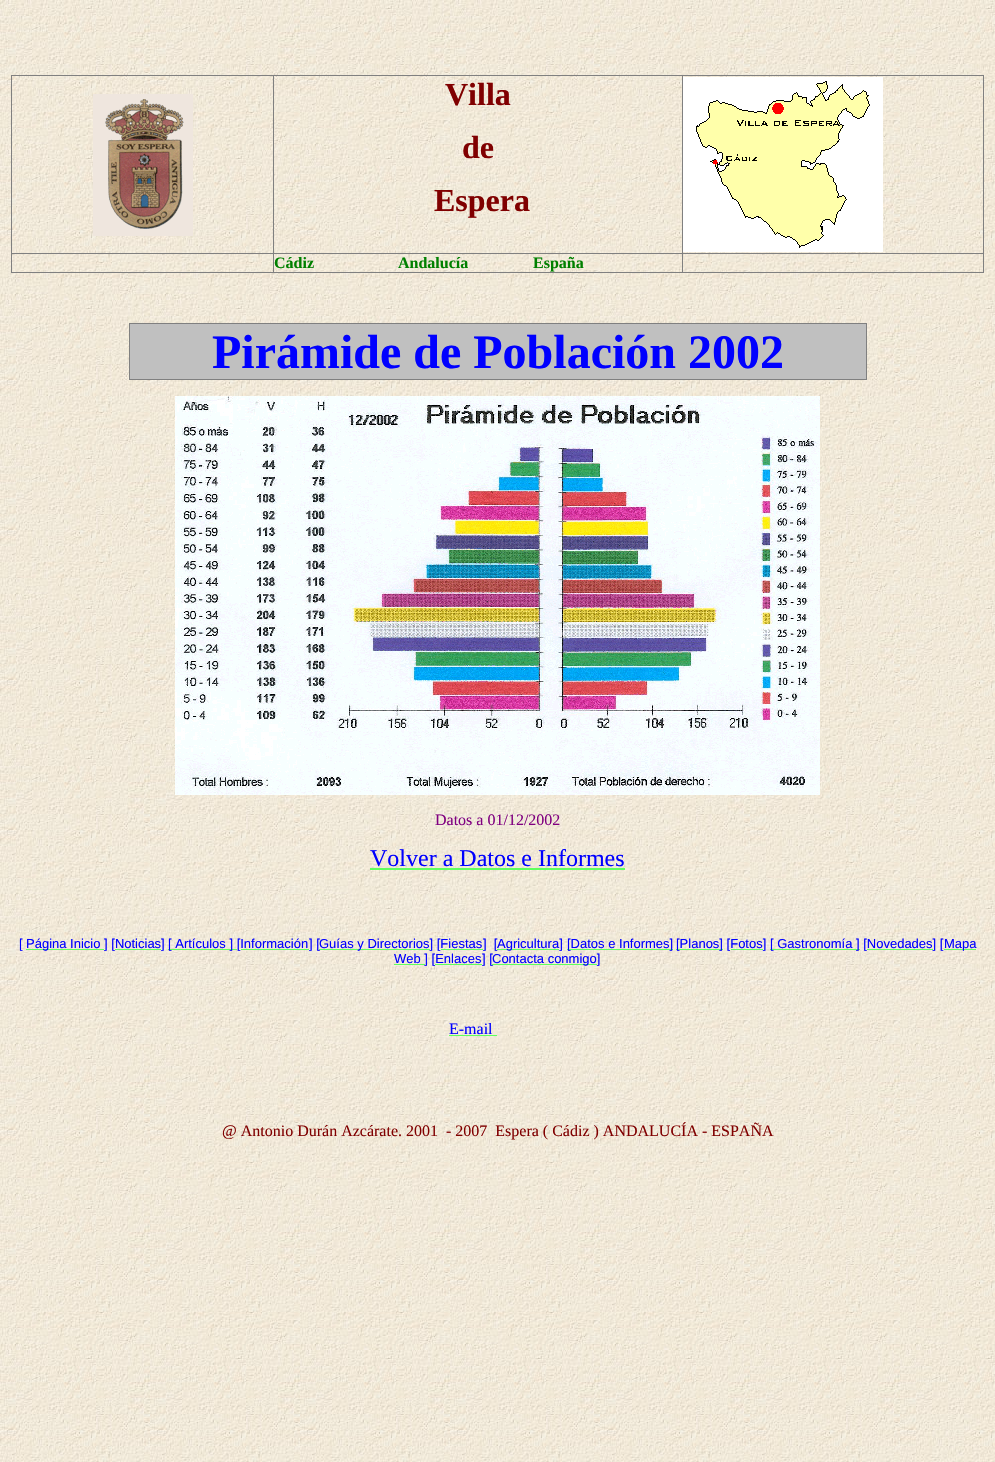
void draw(SkCanvas* canvas) {
    SkPaint paint;
    paint.setAntiAlias(true);
    auto face = [&](const char* family, int weight, float size, bool italic = false) {
        SkFontStyle style(weight, SkFontStyle::kNormal_Width,
            italic ? SkFontStyle::kItalic_Slant : SkFontStyle::kUpright_Slant);
        SkFont result(fontMgr->matchFamilyStyle(family, style), size);
        result.setSubpixel(true);
        return result;
    };
    auto write = [&](const char* s, float x, float y, const SkFont& font, SkColor color) {
        SkPaint ink(SkColor4f::FromColor(color));
        ink.setAntiAlias(true);
        canvas->drawString(s, x, y, font, ink);
    };
    auto block = [&](float x, float y, float w, float h, SkColor color) {
        SkPaint ink(SkColor4f::FromColor(color));
        ink.setAntiAlias(true);
        canvas->drawRect(SkRect::MakeXYWH(x, y, w, h), ink);
    };
    auto paste = [&](const char* path, float x, float y, float w, float h) {
        auto image = SkImages::DeferredFromEncodedData(SkData::MakeFromFileName(path));
        canvas->drawImageRect(image, SkRect::MakeXYWH(x, y, w, h), SkSamplingOptions());
    };
    canvas->clear(SK_ColorWHITE);
    paste("pic1.png", 0, 0, 995, 1462);
    block(11, 75, 973, 1, SkColorSetRGB(128, 128, 128));
    block(983, 75, 1, 198, SkColorSetRGB(128, 128, 128));
    block(11, 272, 973, 1, SkColorSetRGB(128, 128, 128));
    block(11, 75, 1, 198, SkColorSetRGB(128, 128, 128));
    paste("pic2.png", 93, 94, 100, 142);
    block(682, 253, 302, 1, SkColorSetRGB(128, 128, 128));
    block(682, 253, 1, 20, SkColorSetRGB(128, 128, 128));
    block(273, 253, 410, 1, SkColorSetRGB(128, 128, 128));
    block(273, 253, 1, 20, SkColorSetRGB(128, 128, 128));
    block(11, 253, 263, 1, SkColorSetRGB(128, 128, 128));
    block(273, 75, 1, 179, SkColorSetRGB(128, 128, 128));
    auto kFont1 = face("Liberation Serif", 700, 32);
    write("Villa", 445, 105, kFont1, SkColorSetRGB(128, 0, 0));
    write("de", 462, 158, kFont1, SkColorSetRGB(128, 0, 0));
    write("Espera", 434, 211, kFont1, SkColorSetRGB(128, 0, 0));
    block(682, 75, 1, 179, SkColorSetRGB(128, 128, 128));
    paste("pic3.png", 683, 77, 200, 175);
    auto kFont2 = face("Liberation Serif", 700, 16);
    write("Cádiz", 274, 268, kFont2, SkColorSetRGB(0, 128, 0));
    write("Andalucía", 398, 268, kFont2, SkColorSetRGB(0, 128, 0));
    write("España", 533, 268, kFont2, SkColorSetRGB(0, 128, 0));
    block(130, 324, 736, 55, SkColorSetRGB(192, 192, 192));
    block(129, 323, 738, 1, SkColorSetRGB(128, 128, 128));
    block(866, 323, 1, 57, SkColorSetRGB(128, 128, 128));
    block(129, 379, 738, 1, SkColorSetRGB(128, 128, 128));
    block(129, 323, 1, 57, SkColorSetRGB(128, 128, 128));
    auto kFont3 = face("Liberation Serif", 700, 48);
    write("Pirámide de Población 2002", 212, 368, kFont3, SkColorSetRGB(0, 0, 255));
    paste("pic4.png", 175, 396, 645, 399);
    auto kFont4 = face("Liberation Serif", 400, 16);
    write("Datos a 01/12/2002", 435, 825, kFont4, SkColorSetRGB(128, 0, 128));
    auto kFont5 = face("Liberation Serif", 400, 24);
    write("Volver a Datos e Informes", 370, 866, kFont5, SkColorSetRGB(0, 0, 255));
    block(370, 868, 255, 2, SkColorSetRGB(95, 255, 95));
    auto kFont6 = face("Liberation Sans", 400, 13);
    write("[", 19, 948, kFont6, SkColorSetRGB(0, 0, 255));
    block(26, 949, 78, 1, SkColorSetRGB(95, 255, 95));
    write("Página Inicio ] [Noticias]", 26, 948, kFont6, SkColorSetRGB(0, 0, 255));
    block(115, 949, 46, 1, SkColorSetRGB(95, 255, 95));
    block(168, 949, 69, 1, SkColorSetRGB(95, 255, 95));
    write("[ Artículos ] [Información", 168, 948, kFont6, SkColorSetRGB(0, 0, 255));
    block(241, 949, 68, 1, SkColorSetRGB(95, 255, 95));
    write("] [", 309, 948, kFont6, SkColorSetRGB(0, 0, 255));
    block(319, 949, 111, 1, SkColorSetRGB(95, 255, 95));
    write("Guías y Directorios] [Fiestas", 319, 948, kFont6, SkColorSetRGB(0, 0, 255));
    block(441, 949, 42, 1, SkColorSetRGB(95, 255, 95));
    write("]  [", 483, 948, kFont6, SkColorSetRGB(0, 0, 255));
    block(497, 949, 62, 1, SkColorSetRGB(95, 255, 95));
    write("Agricultura]", 497, 948, kFont6, SkColorSetRGB(0, 0, 255));
    block(567, 949, 106, 1, SkColorSetRGB(95, 255, 95));
    write("[Datos e Informes]", 567, 948, kFont6, SkColorSetRGB(0, 0, 255));
    block(676, 949, 47, 1, SkColorSetRGB(95, 255, 95));
    write("[Planos] [Fotos]", 676, 948, kFont6, SkColorSetRGB(0, 0, 255));
    block(770, 949, 90, 1, SkColorSetRGB(95, 255, 95));
    write("[ Gastronomía ] [Novedades] [", 770, 948, kFont6, SkColorSetRGB(0, 0, 255));
    block(867, 949, 66, 1, SkColorSetRGB(95, 255, 95));
    block(944, 949, 32, 1, SkColorSetRGB(95, 255, 95));
    write("Mapa", 944, 948, kFont6, SkColorSetRGB(0, 0, 255));
    block(731, 949, 32, 1, SkColorSetRGB(95, 255, 95));
    block(394, 964, 31, 1, SkColorSetRGB(95, 255, 95));
    write("Web ] [Enlaces", 394, 963, kFont6, SkColorSetRGB(0, 0, 255));
    block(435, 964, 47, 1, SkColorSetRGB(95, 255, 95));
    write("] [", 482, 963, kFont6, SkColorSetRGB(0, 0, 255));
    block(492, 964, 105, 1, SkColorSetRGB(95, 255, 95));
    write("Contacta conmigo]", 492, 963, kFont6, SkColorSetRGB(0, 0, 255));
    write("E-mail", 449, 1034, kFont4, SkColorSetRGB(0, 0, 255));
    block(449, 1035, 48, 1, SkColorSetRGB(95, 255, 95));
    write("@ Antonio Durán Azcárate. 2001  - 2007  Espera ( Cádiz ) ANDALUCÍA - ESPAÑA", 222, 1136, kFont4, SkColorSetRGB(128, 0, 0));
}
